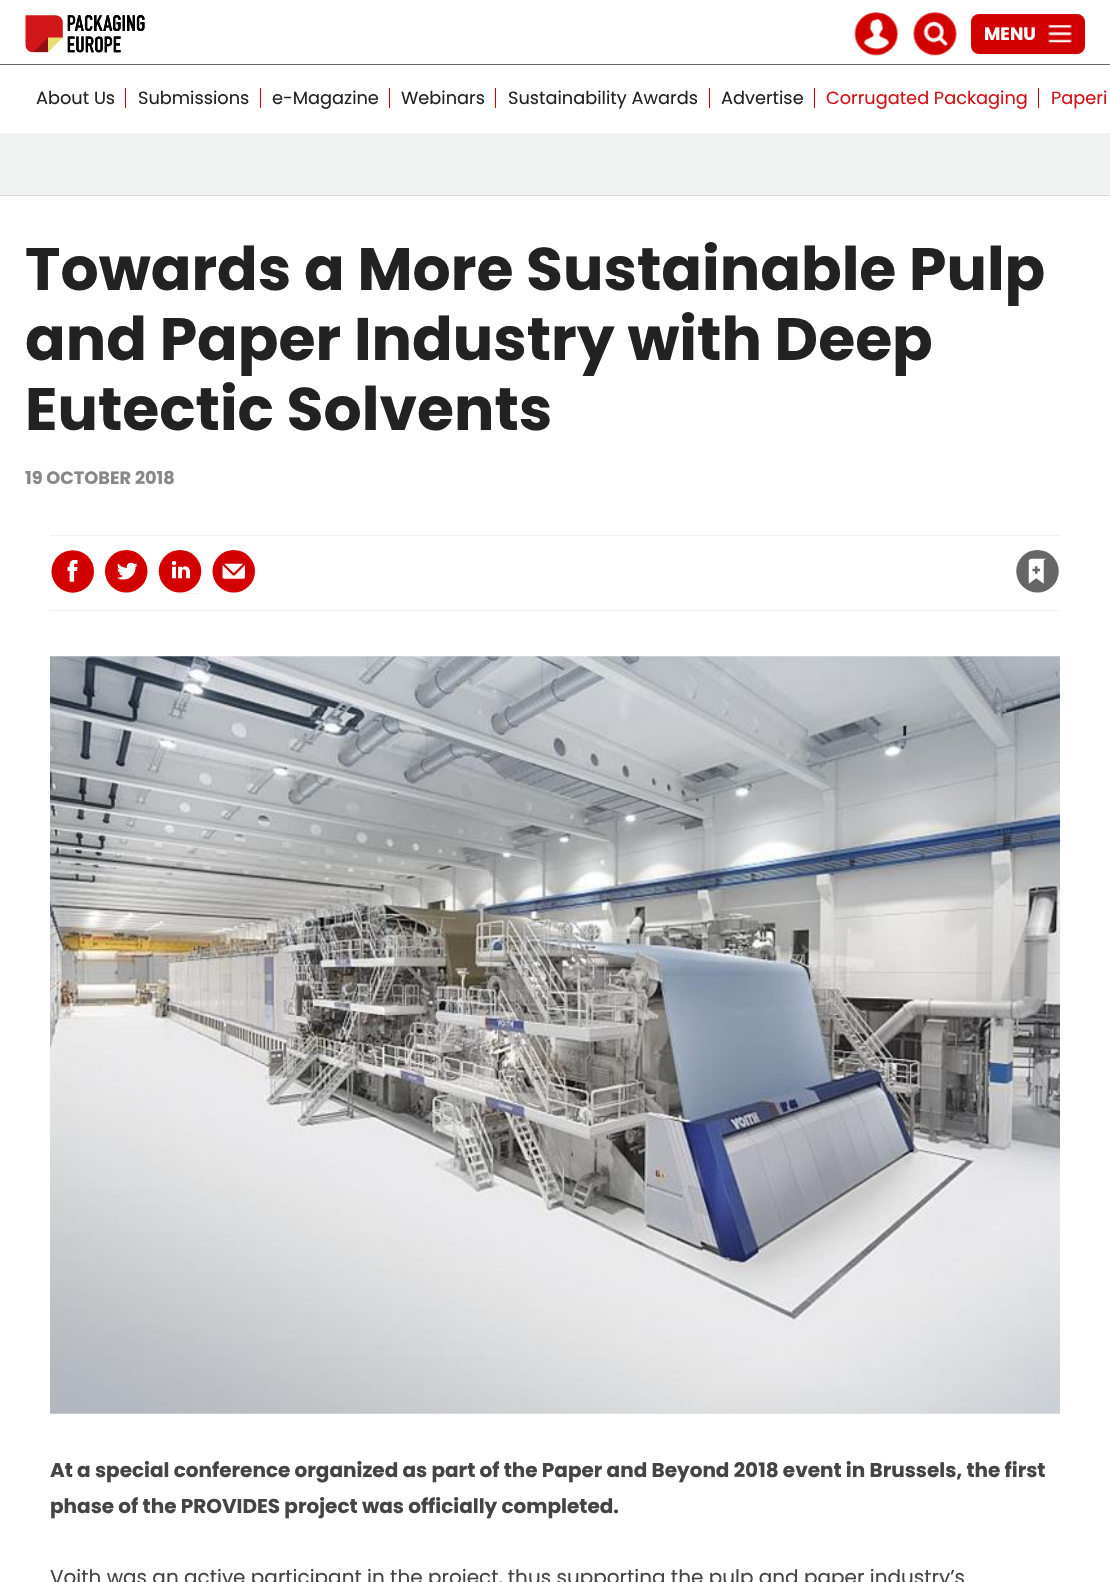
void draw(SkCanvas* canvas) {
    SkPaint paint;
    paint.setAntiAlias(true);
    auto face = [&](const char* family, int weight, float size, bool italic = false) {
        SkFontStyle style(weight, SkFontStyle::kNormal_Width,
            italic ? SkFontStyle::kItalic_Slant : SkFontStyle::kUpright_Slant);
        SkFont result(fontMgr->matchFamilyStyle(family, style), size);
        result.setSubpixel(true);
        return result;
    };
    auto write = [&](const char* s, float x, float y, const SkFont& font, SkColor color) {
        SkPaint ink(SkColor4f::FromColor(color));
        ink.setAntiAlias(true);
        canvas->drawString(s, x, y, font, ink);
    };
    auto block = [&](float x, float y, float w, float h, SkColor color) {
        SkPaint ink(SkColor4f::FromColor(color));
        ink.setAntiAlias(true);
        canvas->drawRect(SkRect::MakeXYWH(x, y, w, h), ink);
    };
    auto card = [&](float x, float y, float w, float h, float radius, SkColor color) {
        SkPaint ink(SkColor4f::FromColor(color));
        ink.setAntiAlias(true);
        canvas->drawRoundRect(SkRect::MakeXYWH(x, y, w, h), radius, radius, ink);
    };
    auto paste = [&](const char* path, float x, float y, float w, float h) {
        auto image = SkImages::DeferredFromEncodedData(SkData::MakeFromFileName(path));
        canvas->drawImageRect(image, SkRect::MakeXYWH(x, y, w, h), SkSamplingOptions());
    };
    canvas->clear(SK_ColorWHITE);
    block(0, 64, 1110, 1, SkColorSetRGB(102, 102, 102));
    paste("pic1.png", 25, 15, 120, 38);
    paste("pic2.png", 854, 12, 44, 44);
    paste("pic3.png", 913, 12, 44, 44);
    card(971, 14, 114, 40, 8, SkColorSetRGB(210, 0, 1));
    auto kFont1 = face("Poppins", 700, 17.75f);
    write("MENU", 984, 40, kFont1, SK_ColorWHITE);
    paste("pic4.png", 1048, 25, 24, 18);
    auto kFont2 = face("Poppins", 400, 17.75f);
    write("About Us", 36, 104, kFont2, SkColorSetRGB(34, 34, 34));
    block(125, 88, 1, 20, SkColorSetRGB(210, 0, 1));
    write("Submissions", 138, 104, kFont2, SkColorSetRGB(34, 34, 34));
    block(260, 88, 1, 20, SkColorSetRGB(210, 0, 1));
    write("e-Magazine", 272, 104, kFont2, SkColorSetRGB(34, 34, 34));
    block(389, 88, 1, 20, SkColorSetRGB(210, 0, 1));
    write("Webinars", 401, 104, kFont2, SkColorSetRGB(34, 34, 34));
    block(495, 88, 1, 20, SkColorSetRGB(210, 0, 1));
    write("Sustainability Awards", 508, 104, kFont2, SkColorSetRGB(34, 34, 34));
    block(709, 88, 1, 20, SkColorSetRGB(210, 0, 1));
    write("Advertise", 721, 104, kFont2, SkColorSetRGB(34, 34, 34));
    block(814, 88, 1, 20, SkColorSetRGB(210, 0, 1));
    write("Corrugated Packaging", 826, 104, kFont2, SkColorSetRGB(209, 18, 22));
    block(1038, 88, 1, 20, SkColorSetRGB(210, 0, 1));
    write("Paperi", 1051, 104, kFont2, SkColorSetRGB(209, 18, 22));
    block(0, 133, 1110, 62, SkColorSetRGB(240, 242, 242));
    block(0, 195, 1110, 1, SkColorSetRGB(220, 220, 220));
    auto kFont3 = face("Poppins", 700, 60);
    write("Towards a More Sustainable Pulp", 25, 290, kFont3, SkColorSetRGB(34, 34, 34));
    write("and Paper Industry with Deep", 25, 360, kFont3, SkColorSetRGB(34, 34, 34));
    write("Eutectic Solvents", 25, 430, kFont3, SkColorSetRGB(34, 34, 34));
    write("19 OCTOBER 2018", 25, 484, kFont1, SkColorSetRGB(136, 136, 136));
    block(50, 535, 1010, 1, SkColorSetRGB(240, 242, 242));
    block(50, 610, 1010, 1, SkColorSetRGB(240, 242, 242));
    paste("pic5.png", 51, 550, 43, 43);
    paste("pic6.png", 104, 550, 44, 43);
    paste("pic7.png", 158, 550, 44, 44);
    paste("pic8.png", 212, 550, 44, 43);
    paste("pic9.png", 1016, 550, 43, 43);
    paste("pic10.png", 50, 656, 1010, 758);
    auto kFont4 = face("Poppins", 700, 20);
    write("At a special conference organized as part of the Paper and Beyond 2018 event in Brussels, the first", 50, 1477, kFont4, SkColorSetRGB(68, 68, 68));
    write("phase of the PROVIDES project was officially completed.", 50, 1513, kFont4, SkColorSetRGB(68, 68, 68));
    auto kFont5 = face("Poppins", 400, 20);
    write("Voith was an active participant in the project, thus supporting the pulp and paper industry’s", 50, 1584, kFont5, SkColorSetRGB(68, 68, 68));
}
